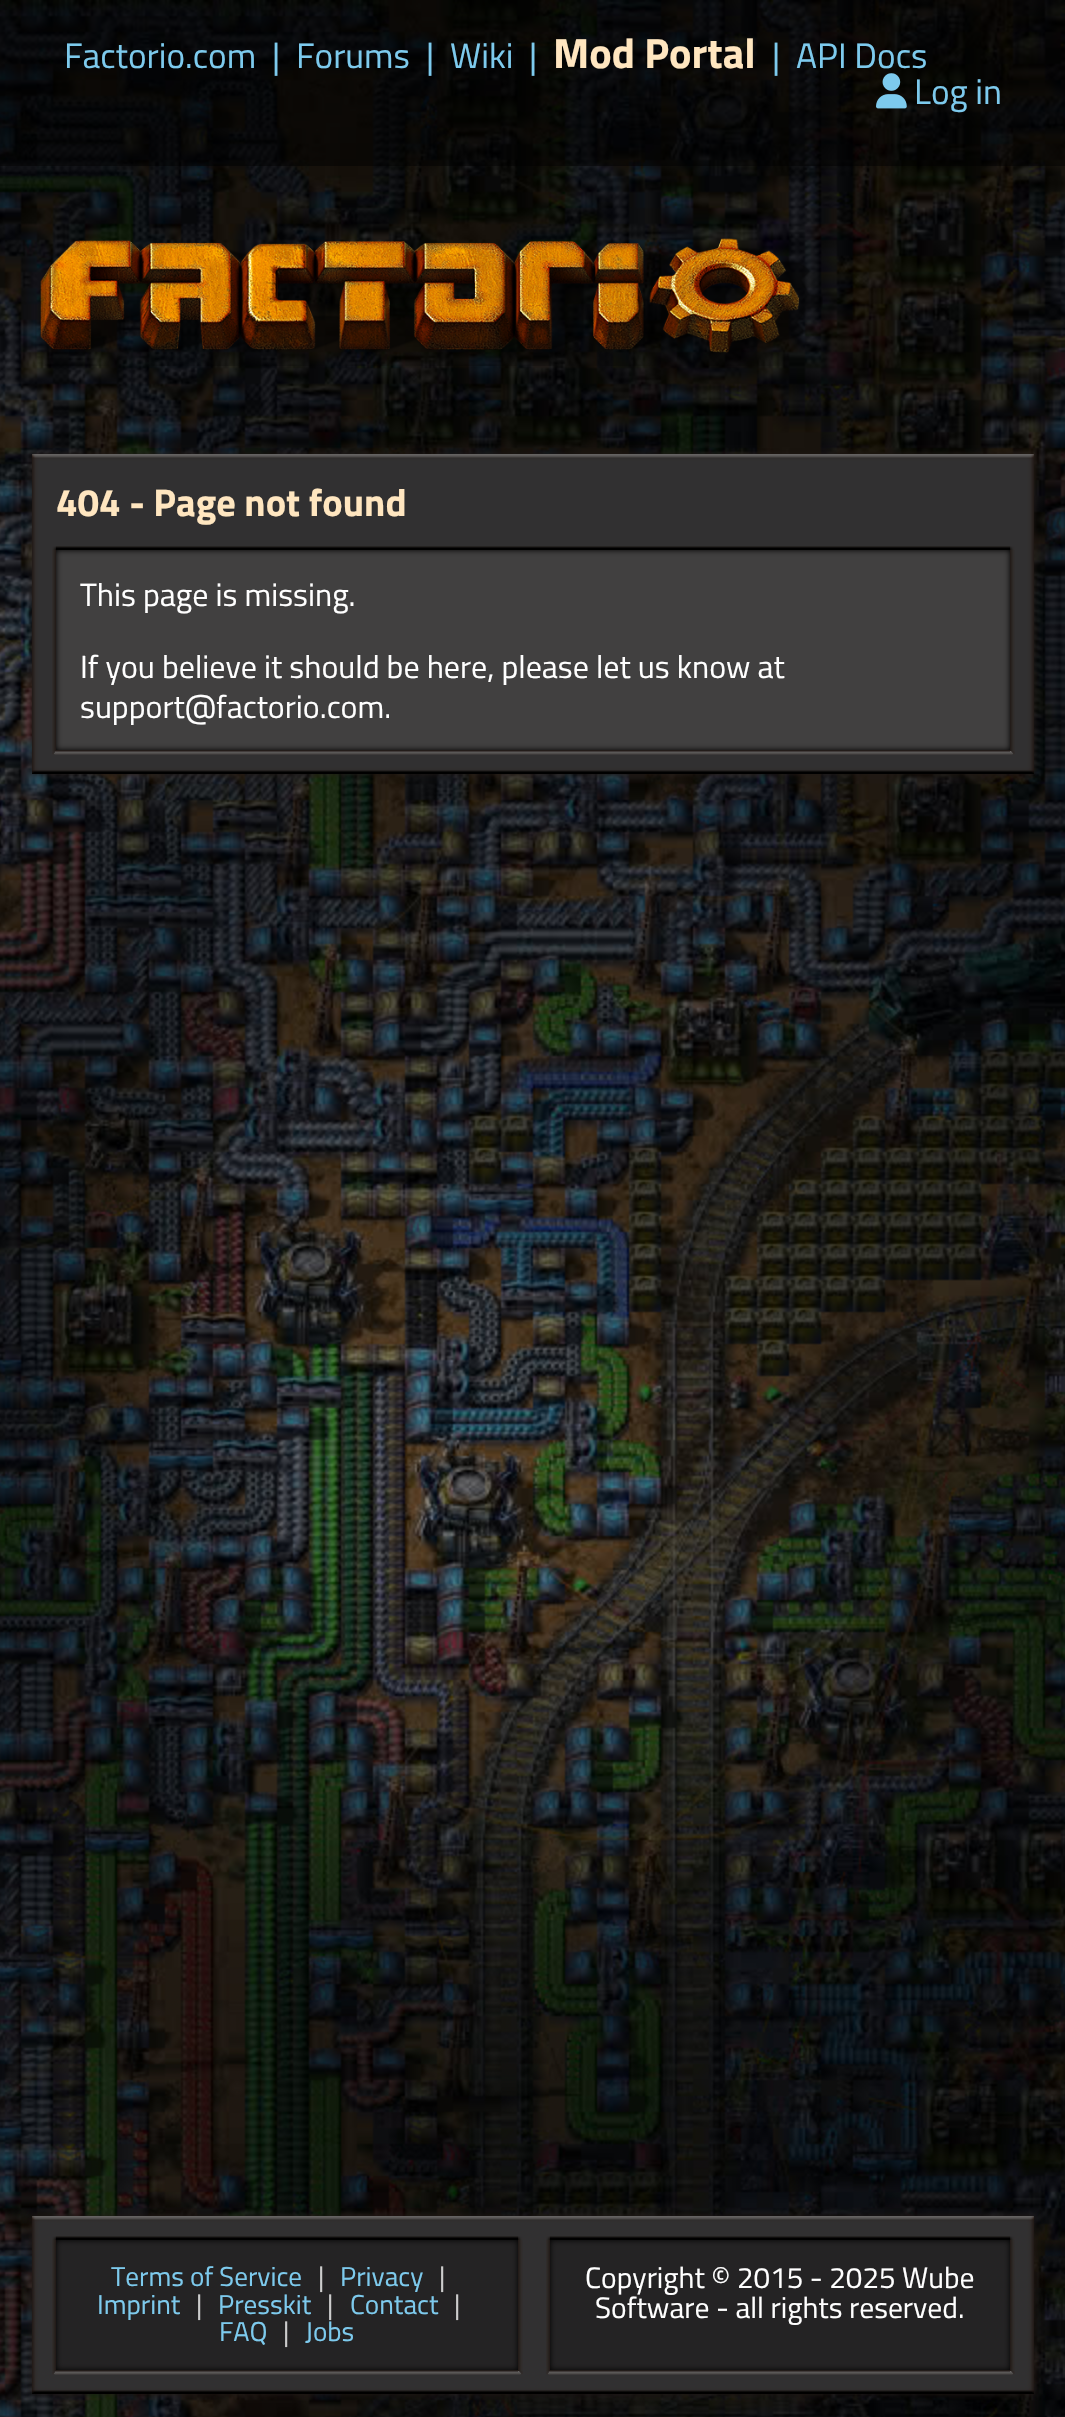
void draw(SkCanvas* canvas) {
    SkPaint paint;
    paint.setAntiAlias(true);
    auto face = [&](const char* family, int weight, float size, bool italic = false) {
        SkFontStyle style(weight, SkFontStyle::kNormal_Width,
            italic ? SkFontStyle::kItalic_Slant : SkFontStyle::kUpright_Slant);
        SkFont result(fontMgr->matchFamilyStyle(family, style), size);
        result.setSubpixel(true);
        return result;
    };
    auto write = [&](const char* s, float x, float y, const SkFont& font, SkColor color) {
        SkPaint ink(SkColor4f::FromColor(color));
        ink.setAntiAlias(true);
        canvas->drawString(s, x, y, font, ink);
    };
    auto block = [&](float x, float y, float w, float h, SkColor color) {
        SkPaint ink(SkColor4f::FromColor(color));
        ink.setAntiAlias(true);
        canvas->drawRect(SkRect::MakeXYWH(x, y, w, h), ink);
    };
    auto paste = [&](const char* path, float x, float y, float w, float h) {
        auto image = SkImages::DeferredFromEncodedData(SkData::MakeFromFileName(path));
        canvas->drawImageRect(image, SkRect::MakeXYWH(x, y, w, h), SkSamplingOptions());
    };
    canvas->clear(SK_ColorWHITE);
    paste("pic1.png", 0, 0, 1065, 2417);
    block(0, 0, 1065, 166, SkColorSetARGB(128, 0, 0, 0));
    auto kFont1 = face("Titillium Web", 400, 35.25f);
    write("Factorio.com", 64, 68, kFont1, SkColorSetRGB(125, 202, 237));
    write("|", 272, 68, kFont1, SkColorSetRGB(125, 202, 237));
    write("Forums", 296, 68, kFont1, SkColorSetRGB(125, 202, 237));
    write("|", 426, 68, kFont1, SkColorSetRGB(125, 202, 237));
    write("Wiki", 450, 68, kFont1, SkColorSetRGB(125, 202, 237));
    write("|", 529, 68, kFont1, SkColorSetRGB(125, 202, 237));
    auto kFont2 = face("Titillium Web", 700, 42.25f);
    write("Mod Portal", 553, 68, kFont2, SkColorSetRGB(255, 230, 192));
    write("|", 772, 68, kFont1, SkColorSetRGB(125, 202, 237));
    write("API Docs", 796, 68, kFont1, SkColorSetRGB(125, 202, 237));
    paste("pic2.png", 876, 73, 31, 36);
    write("Log in", 914, 104, kFont1, SkColorSetRGB(125, 202, 237));
    paste("pic3.png", 35, 238, 788, 128);
    paint.setColor(SkColorSetRGB(32, 24, 21));
    paint.setMaskFilter(SkMaskFilter::MakeBlur(kNormal_SkBlurStyle, 3));
    canvas->drawRect(SkRect::MakeXYWH(32, 454, 1002, 320), paint);
    paint.setMaskFilter(nullptr);
    block(40, 462, 986, 304, SkColorSetRGB(49, 48, 49));
    paste("pic4.png", 32, 454, 1002, 320);
    auto kFont3 = face("Titillium Web", 700, 38.5f);
    write("404 - Page not found", 56, 516, kFont3, SkColorSetRGB(255, 230, 192));
    block(56, 550, 954, 200, SkColorSetRGB(65, 64, 64));
    paste("pic5.png", 52, 546, 963, 209);
    auto kFont4 = face("Titillium Web", 400, 32);
    write("This page is missing.", 80, 606, kFont4, SK_ColorWHITE);
    write("If you believe it should be here, please let us know at", 80, 678, kFont4, SK_ColorWHITE);
    write("support@factorio.com.", 80, 718, kFont4, SK_ColorWHITE);
    paint.setMaskFilter(SkMaskFilter::MakeBlur(kNormal_SkBlurStyle, 3));
    canvas->drawRect(SkRect::MakeXYWH(32, 2216, 1002, 178), paint);
    paint.setMaskFilter(nullptr);
    block(40, 2224, 986, 162, SkColorSetRGB(49, 48, 49));
    paste("pic6.png", 32, 2216, 1002, 178);
    block(56, 2240, 462, 130, SkColorSetRGB(36, 35, 36));
    paste("pic7.png", 52, 2236, 471, 139);
    auto kFont5 = face("Titillium Web", 400, 27.25f);
    write("Terms of Service", 111, 2286, kFont5, SkColorSetRGB(125, 202, 237));
    write("|", 318, 2286, kFont5, SkColorSetRGB(204, 204, 204));
    write("Privacy", 340, 2286, kFont5, SkColorSetRGB(125, 202, 237));
    write("|", 439, 2286, kFont5, SkColorSetRGB(204, 204, 204));
    write("Imprint", 97, 2314, kFont5, SkColorSetRGB(125, 202, 237));
    write("|", 196, 2314, kFont5, SkColorSetRGB(204, 204, 204));
    write("Presskit", 218, 2314, kFont5, SkColorSetRGB(125, 202, 237));
    write("|", 327, 2314, kFont5, SkColorSetRGB(204, 204, 204));
    write("Contact", 350, 2314, kFont5, SkColorSetRGB(125, 202, 237));
    write("|", 454, 2314, kFont5, SkColorSetRGB(204, 204, 204));
    write("FAQ", 219, 2341, kFont5, SkColorSetRGB(125, 202, 237));
    write("|", 283, 2341, kFont5, SkColorSetRGB(204, 204, 204));
    write("Jobs", 305, 2341, kFont5, SkColorSetRGB(125, 202, 237));
    block(550, 2240, 460, 130, SkColorSetRGB(36, 35, 36));
    paste("pic8.png", 546, 2236, 469, 139);
    auto kFont6 = face("Titillium Web", 400, 29.6f);
    write("Copyright © 2015 - 2025 Wube", 585, 2288, kFont6, SK_ColorWHITE);
    write("Software - all rights reserved.", 595, 2318, kFont6, SK_ColorWHITE);
}
